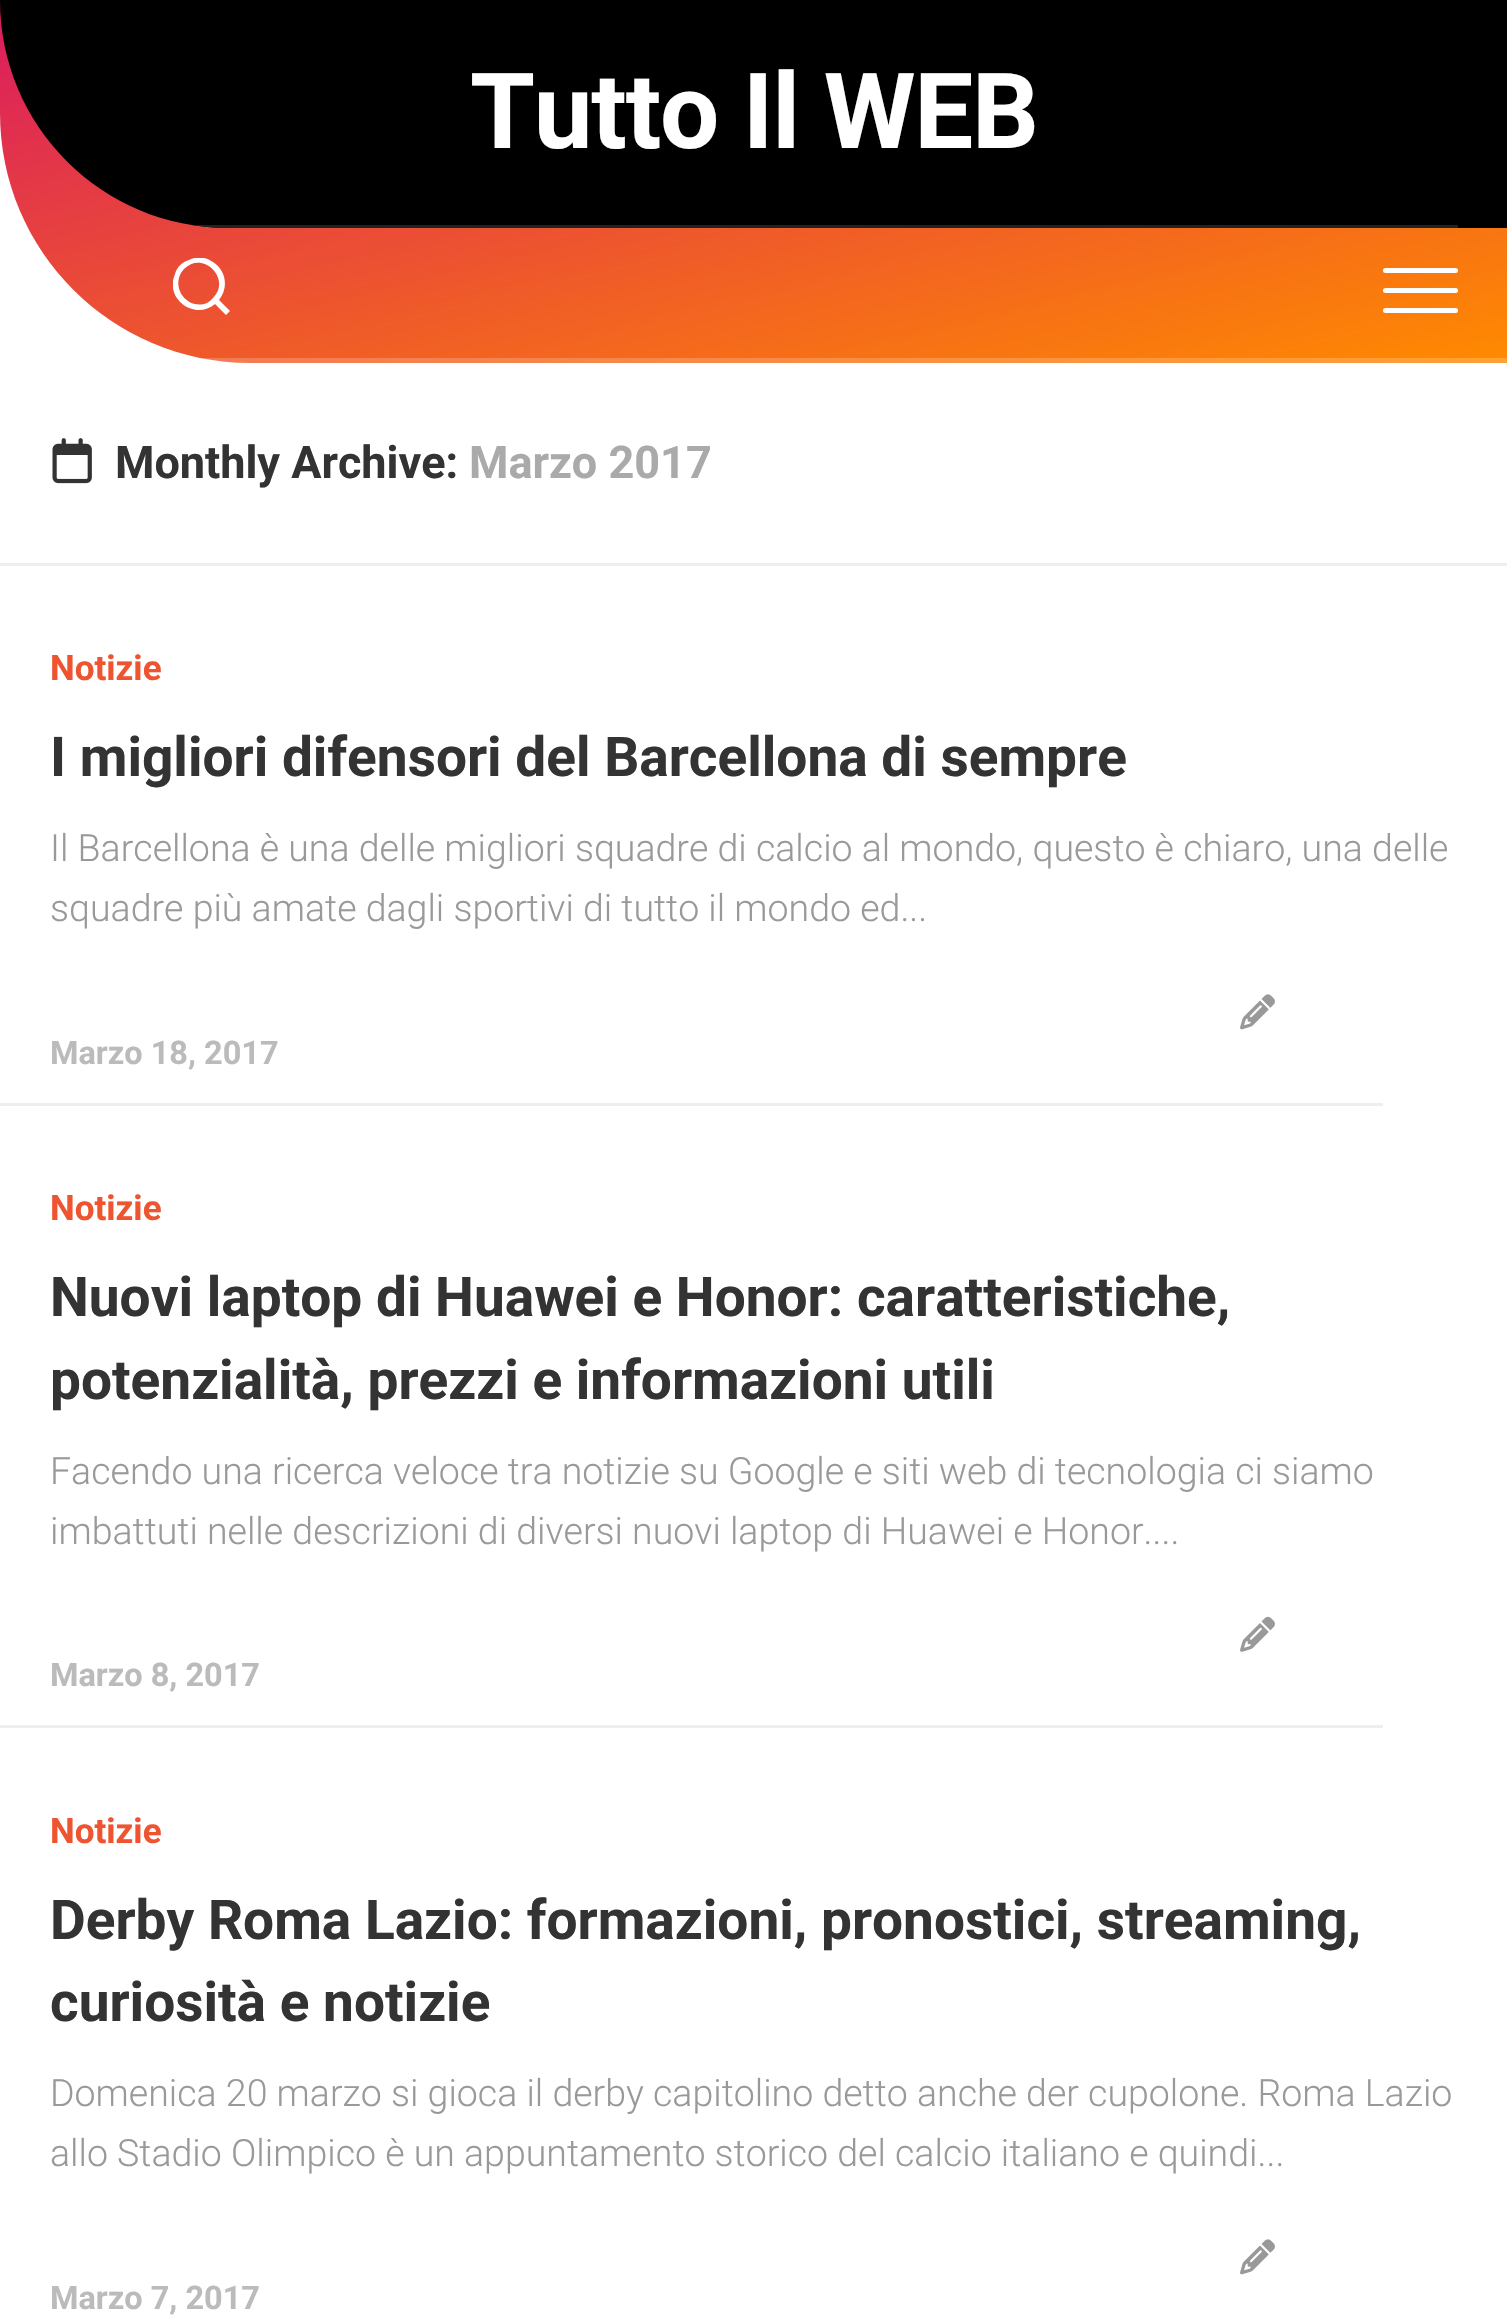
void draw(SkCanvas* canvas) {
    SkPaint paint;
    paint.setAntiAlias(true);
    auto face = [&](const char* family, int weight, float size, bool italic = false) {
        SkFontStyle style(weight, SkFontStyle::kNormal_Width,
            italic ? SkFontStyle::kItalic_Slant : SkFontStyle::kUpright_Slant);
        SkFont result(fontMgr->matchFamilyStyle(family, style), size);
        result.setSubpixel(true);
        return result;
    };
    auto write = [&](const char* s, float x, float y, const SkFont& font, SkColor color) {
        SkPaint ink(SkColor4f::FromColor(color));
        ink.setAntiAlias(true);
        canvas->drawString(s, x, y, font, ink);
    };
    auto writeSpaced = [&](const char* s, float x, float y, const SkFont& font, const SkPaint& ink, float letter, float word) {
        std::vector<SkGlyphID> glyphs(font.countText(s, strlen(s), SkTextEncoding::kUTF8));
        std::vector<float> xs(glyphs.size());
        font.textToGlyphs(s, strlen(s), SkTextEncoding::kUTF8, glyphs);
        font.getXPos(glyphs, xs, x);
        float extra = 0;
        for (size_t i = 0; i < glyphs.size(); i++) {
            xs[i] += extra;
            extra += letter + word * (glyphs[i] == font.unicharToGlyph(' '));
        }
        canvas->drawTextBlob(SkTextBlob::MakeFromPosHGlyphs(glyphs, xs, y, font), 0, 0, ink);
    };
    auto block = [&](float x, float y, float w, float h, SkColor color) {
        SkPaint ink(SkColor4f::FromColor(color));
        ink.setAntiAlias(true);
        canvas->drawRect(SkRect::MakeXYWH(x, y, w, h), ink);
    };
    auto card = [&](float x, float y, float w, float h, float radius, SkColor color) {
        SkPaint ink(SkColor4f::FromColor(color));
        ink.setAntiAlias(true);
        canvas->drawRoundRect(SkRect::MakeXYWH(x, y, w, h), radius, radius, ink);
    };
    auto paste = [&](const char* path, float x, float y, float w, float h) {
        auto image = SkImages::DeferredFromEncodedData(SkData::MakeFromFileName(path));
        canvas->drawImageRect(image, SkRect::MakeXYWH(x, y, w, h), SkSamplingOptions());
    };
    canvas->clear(SK_ColorWHITE);
    {
        const SkColor colors[] = {SkColorSetRGB(255, 138, 0), SkColorSetRGB(218, 27, 96)};
        const float stops[] = {0, 1};
        const SkPoint ends[] = {{836, 524}, {671, -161}};
        paint.setShader(SkGradientShader::MakeLinear(ends, colors, stops, 2, SkTileMode::kClamp));
        paint.setAlpha(255);
    }
    canvas->drawPath(SkPathBuilder().moveTo(0, 0).lineTo(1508, 0).lineTo(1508, 363).lineTo(250, 363).cubicTo(112, 363, 0, 251, 0, 113).close().detach(), paint);
    block(200, 358, 1307, 5, SkColorSetARGB(51, 255, 255, 255));
    paint.setShader(nullptr);
    paint.setColor(SK_ColorBLACK);
    canvas->drawPath(SkPathBuilder().moveTo(0, 0).lineTo(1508, 0).lineTo(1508, 228).lineTo(228, 228).cubicTo(102, 228, 0, 126, 0, 0).close().detach(), paint);
    canvas->save();
    canvas->clipPath(SkPathBuilder().moveTo(0, 0).lineTo(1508, 0).lineTo(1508, 228).lineTo(228, 228).cubicTo(102, 228, 0, 126, 0, 0).close().detach(), true);
    block(191, 225, 1267, 3, SkColorSetRGB(34, 34, 34));
    canvas->restore();
    auto kFont1 = face("Roboto", 700, 105);
    paint.setColor(SK_ColorWHITE);
    writeSpaced("Tutto Il WEB", 470, 148, kFont1, paint, -1.25f, 0);
    canvas->save();
    canvas->clipRect(SkRect::MakeXYWH(173, 258, 57, 57));
    canvas->drawPath(SkPathBuilder().moveTo(219, 300).lineTo(230, 311).lineTo(226, 315).lineTo(215, 304).cubicTo(195, 321, 164, 299, 175, 274).cubicTo(177, 267, 182, 262, 189, 260).cubicTo(197, 256, 206, 257, 213, 262).cubicTo(226, 270, 229, 288, 219, 300).close().moveTo(213, 298).cubicTo(232, 279, 203, 250, 184, 269).cubicTo(169, 285, 186, 311, 207, 303).cubicTo(209, 302, 211, 300, 213, 298).close().detach(), paint);
    canvas->restore();
    card(1383, 268, 75, 5, 2.5f, SK_ColorWHITE);
    card(1383, 288, 75, 5, 2.5f, SK_ColorWHITE);
    card(1383, 308, 75, 5, 2.5f, SK_ColorWHITE);
    block(0, 563, 1507, 3, SkColorSetRGB(238, 238, 238));
    paste("pic1.png", 52, 438, 40, 46);
    auto kFont2 = face("Roboto", 700, 45);
    write("Monthly Archive:", 115, 478, kFont2, SkColorSetRGB(51, 51, 51));
    write("Marzo 2017", 469, 478, kFont2, SkColorSetRGB(170, 170, 170));
    block(0, 1103, 1383, 3, SkColorSetRGB(238, 238, 238));
    auto kFont3 = face("Roboto", 700, 35);
    write("Notizie", 50, 680, kFont3, SkColorSetRGB(237, 84, 47));
    auto kFont4 = face("Roboto", 700, 55);
    write("I migliori difensori del Barcellona di sempre", 50, 776, kFont4, SkColorSetRGB(51, 51, 51));
    auto kFont5 = face("Roboto", 300, 37.5f);
    write("Il Barcellona è una delle migliori squadre di calcio al mondo, questo è chiaro, una delle", 50, 861, kFont5, SkColorSetRGB(153, 153, 153));
    write("squadre più amate dagli sportivi di tutto il mondo ed...", 50, 921, kFont5, SkColorSetRGB(153, 153, 153));
    paste("pic2.png", 1240, 994, 35, 36);
    auto kFont6 = face("Roboto", 700, 32.5f);
    write("Marzo 18, 2017", 50, 1064, kFont6, SkColorSetRGB(187, 187, 187));
    block(0, 1725, 1383, 3, SkColorSetRGB(238, 238, 238));
    write("Notizie", 50, 1220, kFont3, SkColorSetRGB(237, 84, 47));
    write("Nuovi laptop di Huawei e Honor: caratteristiche,", 50, 1316, kFont4, SkColorSetRGB(51, 51, 51));
    write("potenzialità, prezzi e informazioni utili", 50, 1399, kFont4, SkColorSetRGB(51, 51, 51));
    write("Facendo una ricerca veloce tra notizie su Google e siti web di tecnologia ci siamo", 50, 1484, kFont5, SkColorSetRGB(153, 153, 153));
    write("imbattuti nelle descrizioni di diversi nuovi laptop di Huawei e Honor....", 50, 1544, kFont5, SkColorSetRGB(153, 153, 153));
    paste("pic3.png", 1240, 1616, 35, 36);
    write("Marzo 8, 2017", 50, 1686, kFont6, SkColorSetRGB(187, 187, 187));
    write("Notizie", 50, 1843, kFont3, SkColorSetRGB(237, 84, 47));
    write("Derby Roma Lazio: formazioni, pronostici, streaming,", 50, 1939, kFont4, SkColorSetRGB(51, 51, 51));
    write("curiosità e notizie", 50, 2021, kFont4, SkColorSetRGB(51, 51, 51));
    write("Domenica 20 marzo si gioca il derby capitolino detto anche der cupolone. Roma Lazio", 50, 2106, kFont5, SkColorSetRGB(153, 153, 153));
    write("allo Stadio Olimpico è un appuntamento storico del calcio italiano e quindi...", 50, 2166, kFont5, SkColorSetRGB(153, 153, 153));
    paste("pic2.png", 1240, 2239, 35, 36);
    write("Marzo 7, 2017", 50, 2309, kFont6, SkColorSetRGB(187, 187, 187));
}
